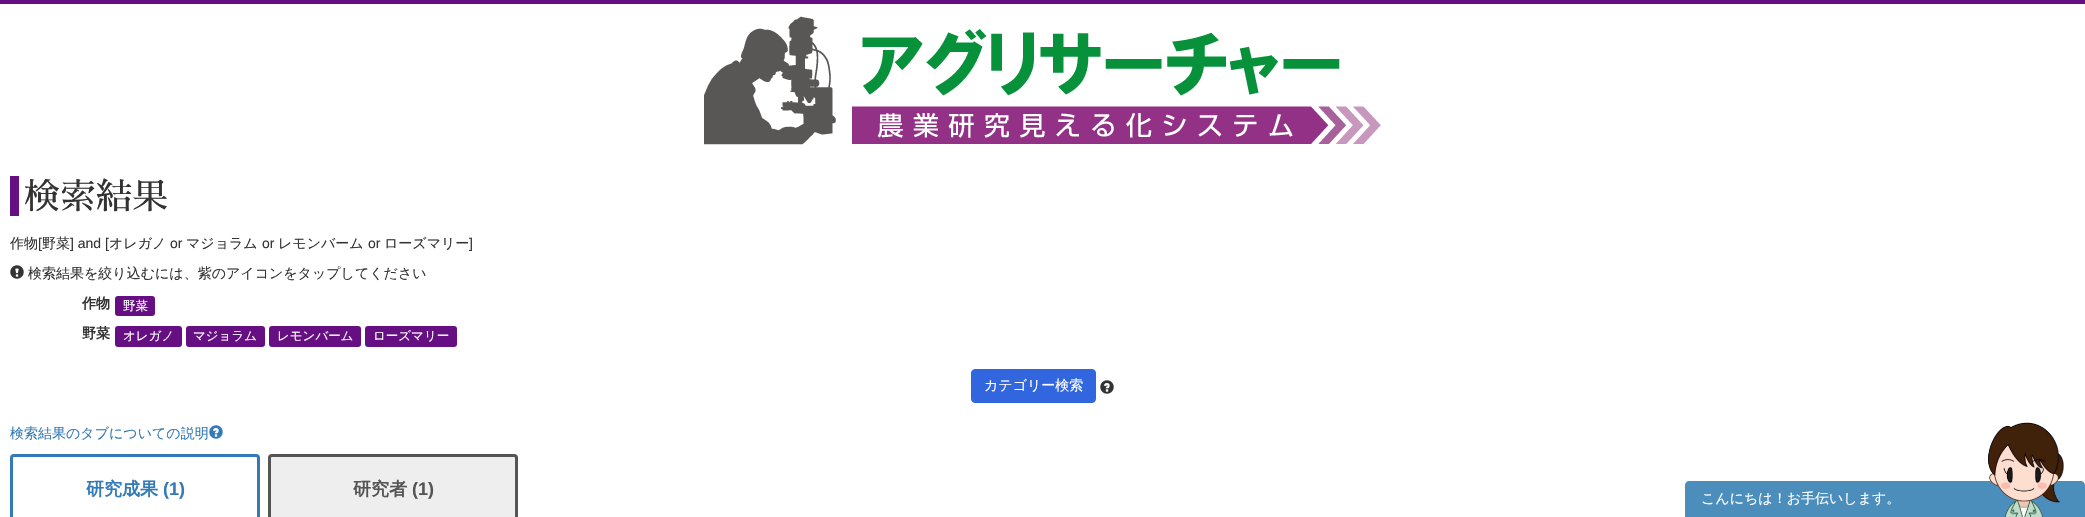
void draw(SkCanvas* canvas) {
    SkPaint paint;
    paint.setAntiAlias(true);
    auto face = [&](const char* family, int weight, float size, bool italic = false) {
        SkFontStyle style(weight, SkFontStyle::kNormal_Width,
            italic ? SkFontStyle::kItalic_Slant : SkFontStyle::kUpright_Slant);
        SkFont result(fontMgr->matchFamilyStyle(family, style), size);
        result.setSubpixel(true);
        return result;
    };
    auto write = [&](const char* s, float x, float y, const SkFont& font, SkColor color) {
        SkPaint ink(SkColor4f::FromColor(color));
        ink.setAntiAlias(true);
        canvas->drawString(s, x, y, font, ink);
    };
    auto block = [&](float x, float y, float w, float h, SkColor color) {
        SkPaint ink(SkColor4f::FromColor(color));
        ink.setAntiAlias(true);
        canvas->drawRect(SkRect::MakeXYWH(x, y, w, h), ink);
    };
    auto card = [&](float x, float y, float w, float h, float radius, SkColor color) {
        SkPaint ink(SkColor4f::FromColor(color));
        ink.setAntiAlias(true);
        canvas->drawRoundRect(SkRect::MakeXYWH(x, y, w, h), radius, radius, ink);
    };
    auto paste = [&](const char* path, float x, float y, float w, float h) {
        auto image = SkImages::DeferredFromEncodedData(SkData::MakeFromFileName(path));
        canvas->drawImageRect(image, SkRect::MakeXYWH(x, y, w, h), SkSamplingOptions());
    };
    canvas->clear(SK_ColorWHITE);
    block(0, 0, 2085, 4, SkColorSetRGB(102, 15, 131));
    paste("pic1.png", 704, 16, 677, 129);
    block(10, 176, 9, 40, SkColorSetRGB(102, 15, 131));
    auto kFont1 = face("Sawarabi Mincho", 400, 36);
    write("検索結果", 24, 209, kFont1, SkColorSetRGB(51, 51, 51));
    auto kFont2 = face("WenQuanYi Zen Hei", 500, 14);
    write("作物", 10, 248, kFont2, SkColorSetRGB(51, 51, 51));
    auto kFont3 = face("Liberation Sans", 400, 14);
    write("[", 38, 248, kFont3, SkColorSetRGB(51, 51, 51));
    write("野菜", 42, 248, kFont2, SkColorSetRGB(51, 51, 51));
    write("] and [", 70, 248, kFont3, SkColorSetRGB(51, 51, 51));
    write("オレガノ", 109, 248, kFont2, SkColorSetRGB(51, 51, 51));
    write("or", 170, 248, kFont3, SkColorSetRGB(51, 51, 51));
    write("マジョラム", 186, 248, kFont2, SkColorSetRGB(51, 51, 51));
    write("or", 262, 248, kFont3, SkColorSetRGB(51, 51, 51));
    write("レモンバーム", 278, 248, kFont2, SkColorSetRGB(51, 51, 51));
    write("or", 368, 248, kFont3, SkColorSetRGB(51, 51, 51));
    write("ローズマリー", 384, 248, kFont2, SkColorSetRGB(51, 51, 51));
    write("]", 469, 248, kFont3, SkColorSetRGB(51, 51, 51));
    paste("pic2.png", 10, 265, 14, 14);
    write("検索結果を絞り込むには、紫のアイコンをタップしてください", 28, 278, kFont2, SkColorSetRGB(51, 51, 51));
    auto kFont4 = face("WenQuanYi Zen Hei", 700, 14);
    write("作物", 82, 308, kFont4, SkColorSetRGB(51, 51, 51));
    card(115, 296, 40, 20, 3, SkColorSetRGB(102, 15, 131));
    auto kFont5 = face("WenQuanYi Zen Hei", 500, 12.5f);
    write("野菜", 123, 310, kFont5, SK_ColorWHITE);
    write("野菜", 82, 338, kFont4, SkColorSetRGB(51, 51, 51));
    card(115, 326, 67, 21, 3, SkColorSetRGB(102, 15, 131));
    write("オレガノ", 123, 340, kFont5, SK_ColorWHITE);
    card(186, 326, 79, 21, 3, SkColorSetRGB(102, 15, 131));
    write("マジョラム", 193, 340, kFont5, SK_ColorWHITE);
    card(269, 326, 92, 21, 3, SkColorSetRGB(102, 15, 131));
    write("レモンバーム", 277, 340, kFont5, SK_ColorWHITE);
    card(365, 326, 92, 21, 3, SkColorSetRGB(102, 15, 131));
    write("ローズマリー", 373, 340, kFont5, SK_ColorWHITE);
    paint.setColor(SkColorSetRGB(50, 102, 222));
    canvas->drawRoundRect(SkRect::MakeXYWH(971.5f, 369.5f, 124, 33), 3.5f, 3.5f, paint);
    paint.setStyle(SkPaint::kStroke_Style);
    paint.setStrokeWidth(1);
    canvas->drawRoundRect(SkRect::MakeXYWH(971.5f, 369.5f, 124, 33), 3.5f, 3.5f, paint);
    write("カテゴリー検索", 984, 390, kFont2, SK_ColorWHITE);
    paste("pic3.png", 1100, 380, 14, 14);
    write("検索結果のタブについての説明", 10, 438, kFont2, SkColorSetRGB(51, 122, 183));
    paste("pic4.png", 209, 425, 14, 14);
    paint.setStrokeWidth(3);
    paint.setColor(SkColorSetRGB(51, 122, 183));
    canvas->drawPath(SkPathBuilder().moveTo(14, 455.5f).lineTo(256, 455.5f).cubicTo(257.5f, 455.5f, 258.5f, 456.5f, 258.5f, 458).lineTo(258.5f, 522.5f).lineTo(11.5f, 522.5f).lineTo(11.5f, 458).cubicTo(11.5f, 456.5f, 12.5f, 455.5f, 14, 455.5f).close().detach(), paint);
    auto kFont6 = face("WenQuanYi Zen Hei", 700, 18);
    write("研究成果", 86, 495, kFont6, SkColorSetRGB(51, 122, 183));
    auto kFont7 = face("Liberation Sans", 700, 18);
    write("(1)", 163, 495, kFont7, SkColorSetRGB(51, 122, 183));
    paint.setStyle(SkPaint::kFill_Style);
    paint.setColor(SkColorSetRGB(238, 238, 238));
    canvas->drawPath(SkPathBuilder().moveTo(272, 455.5f).lineTo(514, 455.5f).cubicTo(515.5f, 455.5f, 516.5f, 456.5f, 516.5f, 458).lineTo(516.5f, 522.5f).lineTo(269.5f, 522.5f).lineTo(269.5f, 458).cubicTo(269.5f, 456.5f, 270.5f, 455.5f, 272, 455.5f).close().detach(), paint);
    paint.setStyle(SkPaint::kStroke_Style);
    paint.setColor(SkColorSetRGB(85, 85, 85));
    canvas->drawPath(SkPathBuilder().moveTo(272, 455.5f).lineTo(514, 455.5f).cubicTo(515.5f, 455.5f, 516.5f, 456.5f, 516.5f, 458).lineTo(516.5f, 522.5f).lineTo(269.5f, 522.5f).lineTo(269.5f, 458).cubicTo(269.5f, 456.5f, 270.5f, 455.5f, 272, 455.5f).close().detach(), paint);
    write("研究者", 353, 495, kFont6, SkColorSetRGB(85, 85, 85));
    write("(1)", 412, 495, kFont7, SkColorSetRGB(85, 85, 85));
    paint.setStyle(SkPaint::kFill_Style);
    paint.setColor(SkColorSetRGB(75, 141, 187));
    canvas->drawPath(SkPathBuilder().moveTo(1689, 481).lineTo(2081, 481).cubicTo(2083, 481, 2085, 483, 2085, 485).lineTo(2085, 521).lineTo(1685, 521).lineTo(1685, 485).cubicTo(1685, 483, 1687, 481, 1689, 481).close().detach(), paint);
    write("こんにちは！お手伝いします。", 1701, 503, kFont2, SK_ColorWHITE);
    paste("pic5.png", 1988, 422, 76, 95);
}
